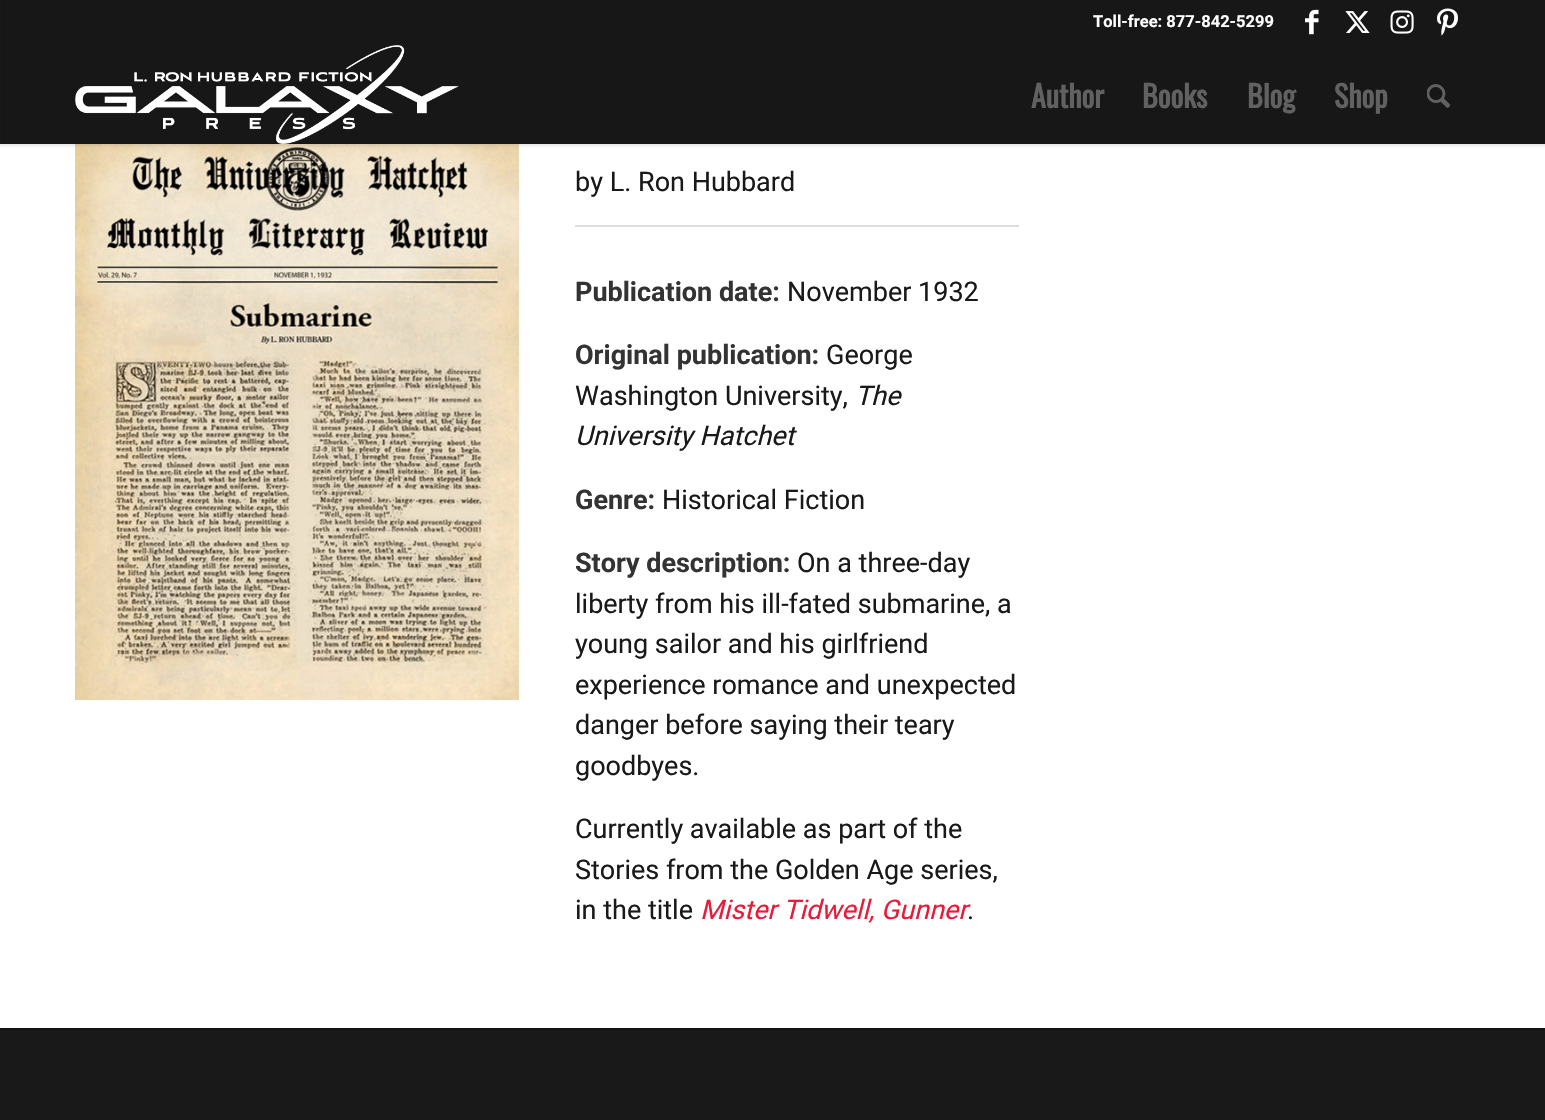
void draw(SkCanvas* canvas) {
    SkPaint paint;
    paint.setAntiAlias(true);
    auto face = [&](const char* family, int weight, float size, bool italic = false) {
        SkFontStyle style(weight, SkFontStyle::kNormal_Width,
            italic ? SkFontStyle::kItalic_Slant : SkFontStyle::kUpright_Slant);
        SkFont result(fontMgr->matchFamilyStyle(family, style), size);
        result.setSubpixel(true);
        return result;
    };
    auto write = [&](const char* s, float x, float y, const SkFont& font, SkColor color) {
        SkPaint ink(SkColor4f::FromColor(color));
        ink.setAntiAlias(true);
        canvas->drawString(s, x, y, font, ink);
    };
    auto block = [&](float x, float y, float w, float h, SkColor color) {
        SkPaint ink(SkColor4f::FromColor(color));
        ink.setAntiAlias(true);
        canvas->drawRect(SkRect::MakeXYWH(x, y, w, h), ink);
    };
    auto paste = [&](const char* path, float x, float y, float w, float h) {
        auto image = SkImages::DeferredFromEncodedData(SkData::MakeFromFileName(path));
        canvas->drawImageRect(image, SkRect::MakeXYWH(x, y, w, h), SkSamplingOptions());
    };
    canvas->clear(SkColorSetRGB(25, 25, 25));
    block(0, 144, 1545, 884, SK_ColorWHITE);
    paste("pic7.png", 75, 144, 444, 556);
    paint.setColor(SkColorSetARGB(26, 0, 0, 0));
    paint.setMaskFilter(SkMaskFilter::MakeBlur(kNormal_SkBlurStyle, 1.5f));
    canvas->drawRect(SkRect::MakeXYWH(-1, -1, 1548, 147), paint);
    paint.setMaskFilter(nullptr);
    auto kFont1 = face("Roboto", 700, 16.5f);
    write("Toll-free: 877-842-5299", 1093, 27, kFont1, SK_ColorWHITE);
    paste("pic1.png", 1305, 9, 14, 26);
    paste("pic2.png", 1345, 11, 25, 22);
    paste("pic3.png", 1390, 10, 24, 24);
    paste("pic4.png", 1437, 8, 21, 28);
    paste("pic5.png", 75, 45, 384, 99);
    auto kFont2 = face("Oswald", 700, 30);
    write("Author", 1031, 108, kFont2, SkColorSetRGB(97, 97, 97));
    write("Books", 1142, 108, kFont2, SkColorSetRGB(97, 97, 97));
    write("Blog", 1247, 108, kFont2, SkColorSetRGB(97, 97, 97));
    write("Shop", 1334, 108, kFont2, SkColorSetRGB(97, 97, 97));
    paste("pic6.png", 1427, 84, 24, 24);
    auto kFont3 = face("Roboto", 400, 27);
    write("by L. Ron Hubbard", 575, 191, kFont3, SkColorSetRGB(25, 25, 25));
    block(575, 225, 444, 2, SkColorSetRGB(221, 221, 221));
    auto kFont4 = face("Roboto", 700, 27);
    write("Publication date:", 575, 301, kFont4, SkColorSetRGB(51, 51, 51));
    write("November 1932", 787, 301, kFont3, SkColorSetRGB(25, 25, 25));
    write("Original publication:", 575, 364, kFont4, SkColorSetRGB(51, 51, 51));
    write("George", 826, 364, kFont3, SkColorSetRGB(25, 25, 25));
    write("Washington University,", 575, 405, kFont3, SkColorSetRGB(25, 25, 25));
    auto kFont5 = face("Roboto", 400, 27, true);
    write("The", 855, 405, kFont5, SkColorSetRGB(25, 25, 25));
    write("University Hatchet", 575, 445, kFont5, SkColorSetRGB(25, 25, 25));
    write("Genre:", 575, 509, kFont4, SkColorSetRGB(51, 51, 51));
    write("Historical Fiction", 662, 509, kFont3, SkColorSetRGB(25, 25, 25));
    write("Story description:", 575, 572, kFont4, SkColorSetRGB(51, 51, 51));
    write("On a three-day", 797, 572, kFont3, SkColorSetRGB(25, 25, 25));
    write("liberty from his ill-fated submarine, a", 575, 613, kFont3, SkColorSetRGB(25, 25, 25));
    write("young sailor and his girlfriend", 575, 653, kFont3, SkColorSetRGB(25, 25, 25));
    write("experience romance and unexpected", 575, 694, kFont3, SkColorSetRGB(25, 25, 25));
    write("danger before saying their teary", 575, 734, kFont3, SkColorSetRGB(25, 25, 25));
    write("goodbyes.", 575, 775, kFont3, SkColorSetRGB(25, 25, 25));
    write("Currently available as part of the", 575, 838, kFont3, SkColorSetRGB(25, 25, 25));
    write("Stories from the Golden Age series,", 575, 879, kFont3, SkColorSetRGB(25, 25, 25));
    write("in the title", 575, 919, kFont3, SkColorSetRGB(25, 25, 25));
    write("Mister Tidwell, Gunner", 700, 919, kFont5, SkColorSetRGB(232, 27, 58));
    write(".", 967, 919, kFont3, SkColorSetRGB(25, 25, 25));
    block(0, 1028, 1545, 2, SkColorSetRGB(17, 17, 17));
}
